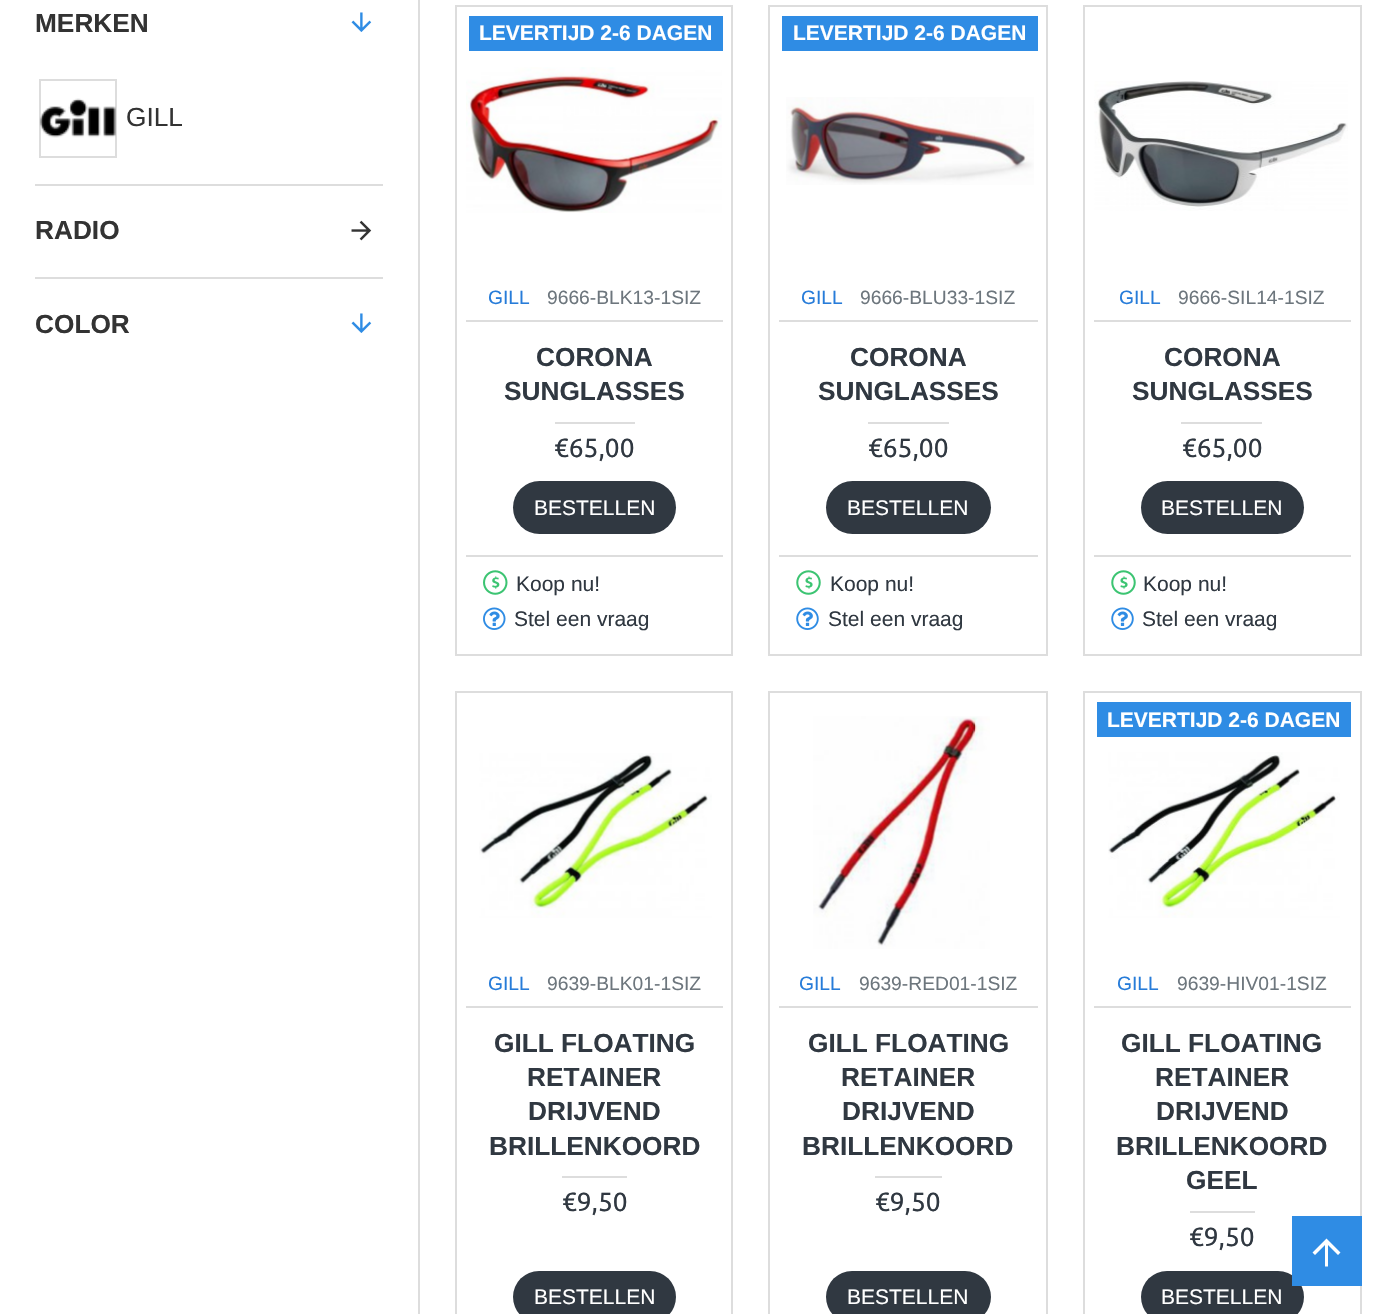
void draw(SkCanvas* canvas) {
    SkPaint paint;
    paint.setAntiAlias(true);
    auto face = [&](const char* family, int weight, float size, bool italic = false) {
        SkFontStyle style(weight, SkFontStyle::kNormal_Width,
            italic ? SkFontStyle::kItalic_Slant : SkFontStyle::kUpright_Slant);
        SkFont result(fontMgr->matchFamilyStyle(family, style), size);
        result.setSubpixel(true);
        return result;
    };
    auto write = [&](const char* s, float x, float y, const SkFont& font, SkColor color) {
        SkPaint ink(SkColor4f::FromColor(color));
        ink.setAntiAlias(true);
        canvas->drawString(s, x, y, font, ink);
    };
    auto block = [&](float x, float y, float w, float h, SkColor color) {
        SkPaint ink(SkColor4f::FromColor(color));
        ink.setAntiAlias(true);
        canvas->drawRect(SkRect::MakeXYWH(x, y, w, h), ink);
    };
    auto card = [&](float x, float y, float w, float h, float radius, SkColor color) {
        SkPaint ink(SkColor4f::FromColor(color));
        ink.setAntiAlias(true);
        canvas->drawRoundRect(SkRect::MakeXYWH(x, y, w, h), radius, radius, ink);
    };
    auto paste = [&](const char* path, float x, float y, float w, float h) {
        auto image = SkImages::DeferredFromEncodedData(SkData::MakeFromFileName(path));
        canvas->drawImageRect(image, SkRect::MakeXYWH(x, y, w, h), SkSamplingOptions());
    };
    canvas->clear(SK_ColorWHITE);
    block(418, 0, 2, 1314, SkColorSetRGB(221, 221, 221));
    auto kFont1 = face("Liberation Sans", 700, 26.25f);
    write("MERKEN", 35, 32, kFont1, SkColorSetRGB(51, 51, 51));
    paste("pic1.png", 351, 12, 21, 20);
    paint.setStyle(SkPaint::kStroke_Style);
    paint.setStrokeWidth(2);
    paint.setColor(SkColorSetRGB(221, 221, 221));
    canvas->drawRect(SkRect::MakeXYWH(40, 80, 76, 77), paint);
    paste("pic2.png", 39, 98, 77, 40);
    auto kFont2 = face("Liberation Sans", 400, 26.25f);
    write("GILL", 126, 126, kFont2, SkColorSetRGB(51, 51, 51));
    block(35, 184, 348, 2, SkColorSetRGB(221, 221, 221));
    write("RADIO", 35, 239, kFont1, SkColorSetRGB(51, 51, 51));
    paste("pic3.png", 351, 220, 21, 21);
    block(35, 277, 348, 2, SkColorSetRGB(221, 221, 221));
    write("COLOR", 35, 333, kFont1, SkColorSetRGB(51, 51, 51));
    paste("pic1.png", 351, 313, 21, 20);
    canvas->drawRect(SkRect::MakeXYWH(456, 6, 276, 649), paint);
    block(469, 16, 254, 35, SkColorSetRGB(47, 140, 228));
    auto kFont3 = face("Liberation Sans", 700, 21);
    write("LEVERTIJD 2-6 DAGEN", 479, 40, kFont3, SK_ColorWHITE);
    paste("pic4.png", 466, 67, 256, 146);
    block(466, 320, 257, 2, SkColorSetRGB(221, 221, 221));
    auto kFont4 = face("Liberation Sans", 400, 19.25f);
    write("GILL", 488, 304, kFont4, SkColorSetRGB(39, 124, 217));
    write("9666-BLK13-1SIZ", 547, 304, kFont4, SkColorSetRGB(109, 118, 125));
    write("CORONA", 536, 366, kFont1, SkColorSetRGB(48, 56, 65));
    write("SUNGLASSES", 504, 400, kFont1, SkColorSetRGB(48, 56, 65));
    block(555, 422, 80, 2, SkColorSetRGB(221, 221, 221));
    auto kFont5 = face("Ubuntu", 400, 26.25f);
    write("€65,00", 554, 457, kFont5, SkColorSetRGB(48, 56, 65));
    card(513, 481, 163, 53, 26.5f, SkColorSetRGB(48, 56, 65));
    auto kFont6 = face("Liberation Sans", 400, 21);
    write("BESTELLEN", 534, 515, kFont6, SK_ColorWHITE);
    block(466, 555, 257, 2, SkColorSetRGB(221, 221, 221));
    paste("pic5.png", 483, 570, 25, 25);
    write("Koop nu!", 516, 591, kFont6, SkColorSetRGB(48, 56, 65));
    paste("pic6.png", 483, 607, 23, 23);
    write("Stel een vraag", 514, 626, kFont6, SkColorSetRGB(48, 56, 65));
    canvas->drawRect(SkRect::MakeXYWH(769, 6, 278, 649), paint);
    block(782, 16, 256, 35, SkColorSetRGB(47, 140, 228));
    write("LEVERTIJD 2-6 DAGEN", 793, 40, kFont3, SK_ColorWHITE);
    paste("pic7.png", 786, 97, 248, 88);
    block(779, 320, 259, 2, SkColorSetRGB(221, 221, 221));
    write("GILL", 801, 304, kFont4, SkColorSetRGB(39, 124, 217));
    write("9666-BLU33-1SIZ", 860, 304, kFont4, SkColorSetRGB(109, 118, 125));
    write("CORONA", 850, 366, kFont1, SkColorSetRGB(48, 56, 65));
    write("SUNGLASSES", 818, 400, kFont1, SkColorSetRGB(48, 56, 65));
    block(868, 422, 81, 2, SkColorSetRGB(221, 221, 221));
    write("€65,00", 868, 457, kFont5, SkColorSetRGB(48, 56, 65));
    card(826, 481, 165, 53, 26.5f, SkColorSetRGB(48, 56, 65));
    write("BESTELLEN", 847, 515, kFont6, SK_ColorWHITE);
    block(779, 555, 259, 2, SkColorSetRGB(221, 221, 221));
    paste("pic8.png", 796, 570, 25, 25);
    write("Koop nu!", 830, 591, kFont6, SkColorSetRGB(48, 56, 65));
    paste("pic9.png", 796, 607, 23, 23);
    write("Stel een vraag", 828, 626, kFont6, SkColorSetRGB(48, 56, 65));
    canvas->drawRect(SkRect::MakeXYWH(1084, 6, 277, 649), paint);
    paste("pic10.png", 1094, 81, 254, 130);
    block(1094, 320, 257, 2, SkColorSetRGB(221, 221, 221));
    write("GILL", 1119, 304, kFont4, SkColorSetRGB(39, 124, 217));
    write("9666-SIL14-1SIZ", 1178, 304, kFont4, SkColorSetRGB(109, 118, 125));
    write("CORONA", 1164, 366, kFont1, SkColorSetRGB(48, 56, 65));
    write("SUNGLASSES", 1132, 400, kFont1, SkColorSetRGB(48, 56, 65));
    block(1181, 422, 81, 2, SkColorSetRGB(221, 221, 221));
    write("€65,00", 1182, 457, kFont5, SkColorSetRGB(48, 56, 65));
    card(1141, 481, 163, 53, 26.5f, SkColorSetRGB(48, 56, 65));
    write("BESTELLEN", 1161, 515, kFont6, SK_ColorWHITE);
    block(1094, 555, 257, 2, SkColorSetRGB(221, 221, 221));
    paste("pic8.png", 1111, 570, 25, 25);
    write("Koop nu!", 1143, 591, kFont6, SkColorSetRGB(48, 56, 65));
    paste("pic9.png", 1111, 607, 23, 23);
    write("Stel een vraag", 1142, 626, kFont6, SkColorSetRGB(48, 56, 65));
    canvas->drawRect(SkRect::MakeXYWH(456, 692, 276, 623), paint);
    paste("pic11.png", 479, 753, 233, 165);
    block(466, 1006, 257, 2, SkColorSetRGB(221, 221, 221));
    write("GILL", 488, 990, kFont4, SkColorSetRGB(39, 124, 217));
    write("9639-BLK01-1SIZ", 547, 990, kFont4, SkColorSetRGB(109, 118, 125));
    write("GILL FLOATING", 494, 1052, kFont1, SkColorSetRGB(48, 56, 65));
    write("RETAINER", 527, 1086, kFont1, SkColorSetRGB(48, 56, 65));
    write("DRIJVEND", 528, 1120, kFont1, SkColorSetRGB(48, 56, 65));
    write("BRILLENKOORD", 489, 1155, kFont1, SkColorSetRGB(48, 56, 65));
    block(562, 1176, 65, 2, SkColorSetRGB(221, 221, 221));
    write("€9,50", 562, 1211, kFont5, SkColorSetRGB(48, 56, 65));
    card(513, 1271, 163, 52, 26, SkColorSetRGB(48, 56, 65));
    write("BESTELLEN", 534, 1304, kFont6, SK_ColorWHITE);
    canvas->drawRect(SkRect::MakeXYWH(769, 692, 278, 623), paint);
    paste("pic12.png", 813, 716, 177, 233);
    block(779, 1006, 259, 2, SkColorSetRGB(221, 221, 221));
    write("GILL", 799, 990, kFont4, SkColorSetRGB(39, 124, 217));
    write("9639-RED01-1SIZ", 859, 990, kFont4, SkColorSetRGB(109, 118, 125));
    write("GILL FLOATING", 808, 1052, kFont1, SkColorSetRGB(48, 56, 65));
    write("RETAINER", 841, 1086, kFont1, SkColorSetRGB(48, 56, 65));
    write("DRIJVEND", 842, 1120, kFont1, SkColorSetRGB(48, 56, 65));
    write("BRILLENKOORD", 802, 1155, kFont1, SkColorSetRGB(48, 56, 65));
    block(875, 1176, 67, 2, SkColorSetRGB(221, 221, 221));
    write("€9,50", 875, 1211, kFont5, SkColorSetRGB(48, 56, 65));
    card(826, 1271, 165, 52, 26, SkColorSetRGB(48, 56, 65));
    write("BESTELLEN", 847, 1304, kFont6, SK_ColorWHITE);
    canvas->drawRect(SkRect::MakeXYWH(1084, 692, 277, 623), paint);
    block(1097, 702, 254, 35, SkColorSetRGB(47, 140, 228));
    write("LEVERTIJD 2-6 DAGEN", 1107, 727, kFont3, SK_ColorWHITE);
    paste("pic13.png", 1108, 752, 232, 166);
    block(1094, 1006, 257, 2, SkColorSetRGB(221, 221, 221));
    write("GILL", 1117, 990, kFont4, SkColorSetRGB(39, 124, 217));
    write("9639-HIV01-1SIZ", 1177, 990, kFont4, SkColorSetRGB(109, 118, 125));
    write("GILL FLOATING", 1121, 1052, kFont1, SkColorSetRGB(48, 56, 65));
    write("RETAINER", 1155, 1086, kFont1, SkColorSetRGB(48, 56, 65));
    write("DRIJVEND", 1156, 1120, kFont1, SkColorSetRGB(48, 56, 65));
    write("BRILLENKOORD", 1116, 1155, kFont1, SkColorSetRGB(48, 56, 65));
    write("GEEL", 1186, 1189, kFont1, SkColorSetRGB(48, 56, 65));
    block(1190, 1211, 65, 2, SkColorSetRGB(221, 221, 221));
    write("€9,50", 1189, 1246, kFont5, SkColorSetRGB(48, 56, 65));
    card(1141, 1271, 163, 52, 26, SkColorSetRGB(48, 56, 65));
    write("BESTELLEN", 1161, 1304, kFont6, SK_ColorWHITE);
    block(1292, 1216, 70, 70, SkColorSetRGB(47, 140, 228));
    paint.setStyle(SkPaint::kFill_Style);
    paint.setColor(SK_ColorWHITE);
    canvas->drawPath(SkPathBuilder().moveTo(1312.5f, 1252.5f).lineTo(1326.5f, 1238.5f).lineTo(1340.5f, 1252.5f).lineTo(1338, 1255).lineTo(1328, 1245).lineTo(1328, 1266.5f).lineTo(1325, 1266.5f).lineTo(1325, 1245).lineTo(1315, 1255).close().detach(), paint);
}
